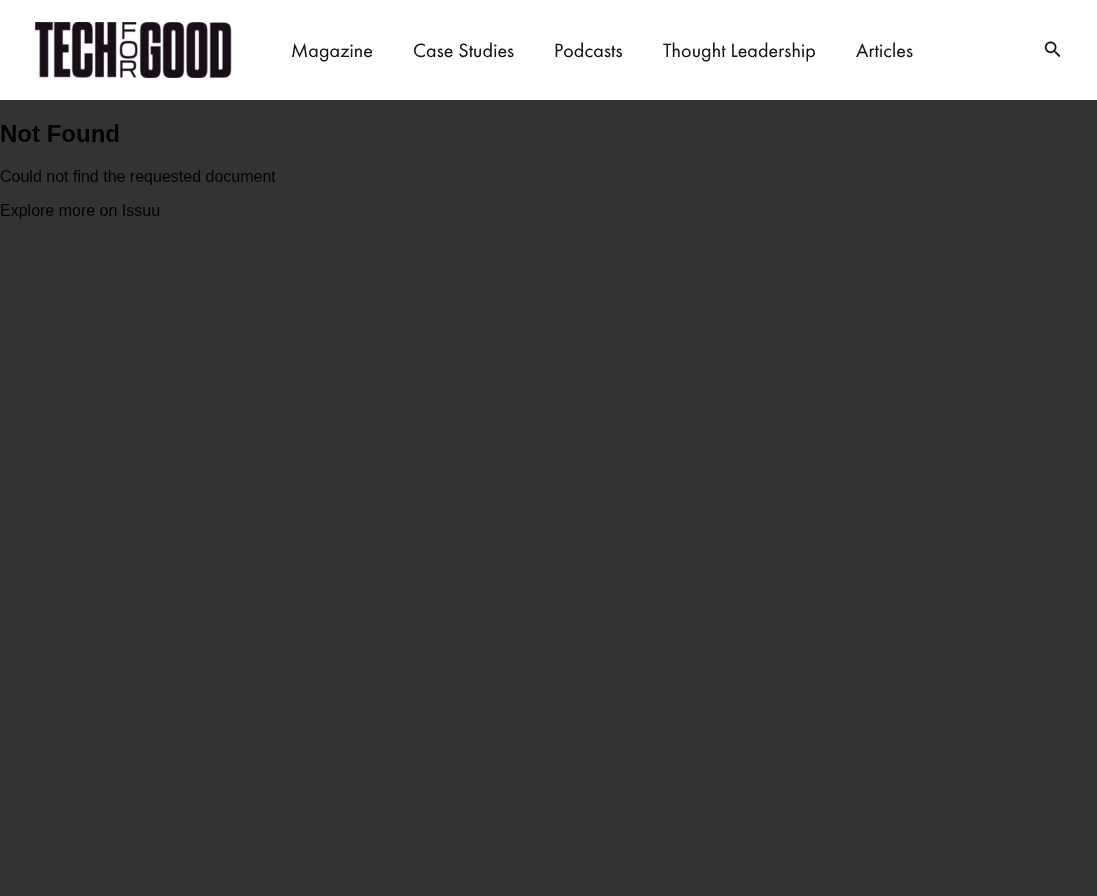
void draw(SkCanvas* canvas) {
    SkPaint paint;
    paint.setAntiAlias(true);
    auto face = [&](const char* family, int weight, float size, bool italic = false) {
        SkFontStyle style(weight, SkFontStyle::kNormal_Width,
            italic ? SkFontStyle::kItalic_Slant : SkFontStyle::kUpright_Slant);
        SkFont result(fontMgr->matchFamilyStyle(family, style), size);
        result.setSubpixel(true);
        return result;
    };
    auto writeSpaced = [&](const char* s, float x, float y, const SkFont& font, const SkPaint& ink, float letter, float word) {
        std::vector<SkGlyphID> glyphs(font.countText(s, strlen(s), SkTextEncoding::kUTF8));
        std::vector<float> xs(glyphs.size());
        font.textToGlyphs(s, strlen(s), SkTextEncoding::kUTF8, glyphs);
        font.getXPos(glyphs, xs, x);
        float extra = 0;
        for (size_t i = 0; i < glyphs.size(); i++) {
            xs[i] += extra;
            extra += letter + word * (glyphs[i] == font.unicharToGlyph(' '));
        }
        canvas->drawTextBlob(SkTextBlob::MakeFromPosHGlyphs(glyphs, xs, y, font), 0, 0, ink);
    };
    auto block = [&](float x, float y, float w, float h, SkColor color) {
        SkPaint ink(SkColor4f::FromColor(color));
        ink.setAntiAlias(true);
        canvas->drawRect(SkRect::MakeXYWH(x, y, w, h), ink);
    };
    auto paste = [&](const char* path, float x, float y, float w, float h) {
        auto image = SkImages::DeferredFromEncodedData(SkData::MakeFromFileName(path));
        canvas->drawImageRect(image, SkRect::MakeXYWH(x, y, w, h), SkSamplingOptions());
    };
    canvas->clear(SkColorSetRGB(51, 51, 51));
    block(0, 0, 1097, 100, SK_ColorWHITE);
    paste("pic1.png", 35, 22, 197, 56);
    auto kFont1 = face("Futura PT", 400, 20);
    paint.setColor(SkColorSetRGB(22, 22, 23));
    writeSpaced("Magazine", 291, 57, kFont1, paint, 0.1f, 0);
    writeSpaced("Case Studies", 413, 57, kFont1, paint, 0.1f, 0);
    writeSpaced("Podcasts", 554, 57, kFont1, paint, 0.1f, 0);
    writeSpaced("Thought Leadership", 663, 57, kFont1, paint, 0.1f, 0);
    writeSpaced("Articles", 856, 57, kFont1, paint, 0.1f, 0);
    paste("pic2.png", 1044, 41, 16, 17);
    paste("pic3.png", 0, 124, 276, 95);
}
